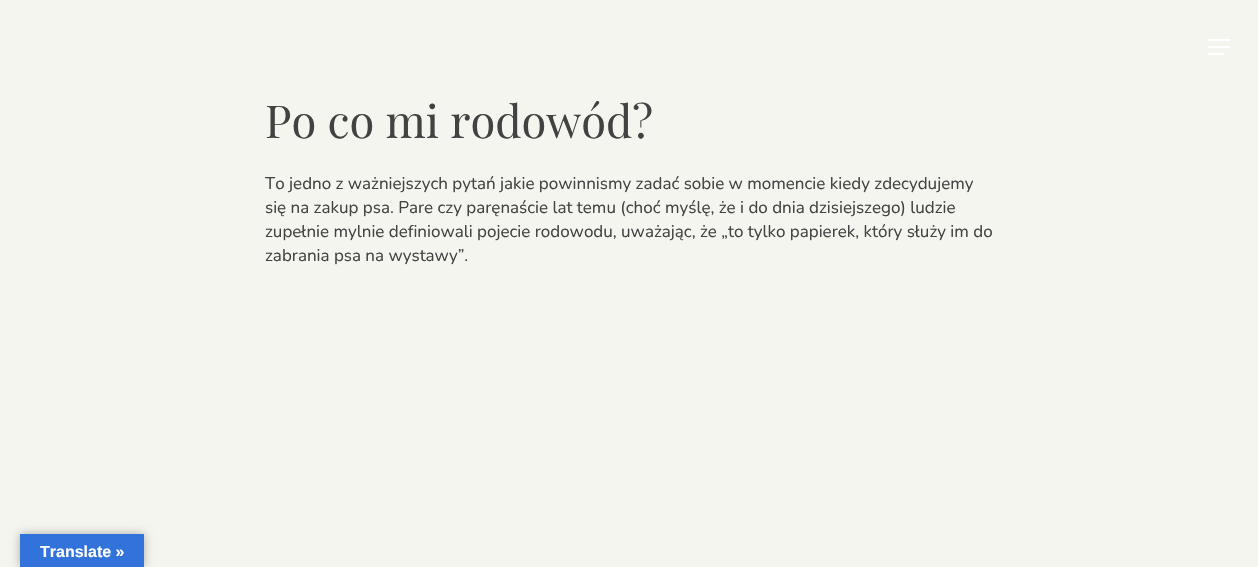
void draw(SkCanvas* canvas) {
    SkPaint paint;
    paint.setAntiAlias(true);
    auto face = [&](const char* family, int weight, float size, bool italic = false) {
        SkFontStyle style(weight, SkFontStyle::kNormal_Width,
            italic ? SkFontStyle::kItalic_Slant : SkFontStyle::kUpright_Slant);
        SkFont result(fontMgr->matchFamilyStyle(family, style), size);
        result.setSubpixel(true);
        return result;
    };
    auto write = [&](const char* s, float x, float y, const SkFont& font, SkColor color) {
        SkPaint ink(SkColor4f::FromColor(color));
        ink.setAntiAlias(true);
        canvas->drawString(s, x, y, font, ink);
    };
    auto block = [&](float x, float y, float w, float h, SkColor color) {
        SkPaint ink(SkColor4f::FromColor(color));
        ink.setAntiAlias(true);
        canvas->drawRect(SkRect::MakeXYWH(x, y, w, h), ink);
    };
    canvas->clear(SkColorSetRGB(245, 245, 240));
    block(1208, 39, 22, 2, SK_ColorWHITE);
    block(1208, 53, 16, 2, SK_ColorWHITE);
    block(1208, 46, 22, 2, SK_ColorWHITE);
    auto kFont1 = face("Playfair Display", 400, 45.25f);
    write("Po co mi rodowód?", 265, 138, kFont1, SkColorSetRGB(66, 66, 66));
    auto kFont2 = face("Nunito", 200, 17);
    write("To jedno z ważniejszych pytań jakie powinnismy zadać sobie w momencie kiedy zdecydujemy", 265, 189, kFont2, SkColorSetRGB(66, 66, 66));
    write("się na zakup psa. Pare czy paręnaście lat temu (choć myślę, że i do dnia dzisiejszego) ludzie", 265, 213, kFont2, SkColorSetRGB(66, 66, 66));
    write("zupełnie mylnie definiowali pojecie rodowodu, uważając, że „to tylko papierek, który służy im do", 265, 237, kFont2, SkColorSetRGB(66, 66, 66));
    write("zabrania psa na wystawy”.", 265, 261, kFont2, SkColorSetRGB(66, 66, 66));
    paint.setColor(SkColorSetARGB(77, 0, 0, 0));
    paint.setMaskFilter(SkMaskFilter::MakeBlur(kNormal_SkBlurStyle, 4.5f));
    canvas->drawRect(SkRect::MakeXYWH(20, 534, 124, 33), paint);
    paint.setMaskFilter(nullptr);
    block(20, 534, 124, 33, SkColorSetRGB(49, 114, 219));
    auto kFont3 = face("Liberation Sans", 700, 16);
    write("Translate »", 40, 557, kFont3, SK_ColorWHITE);
}
